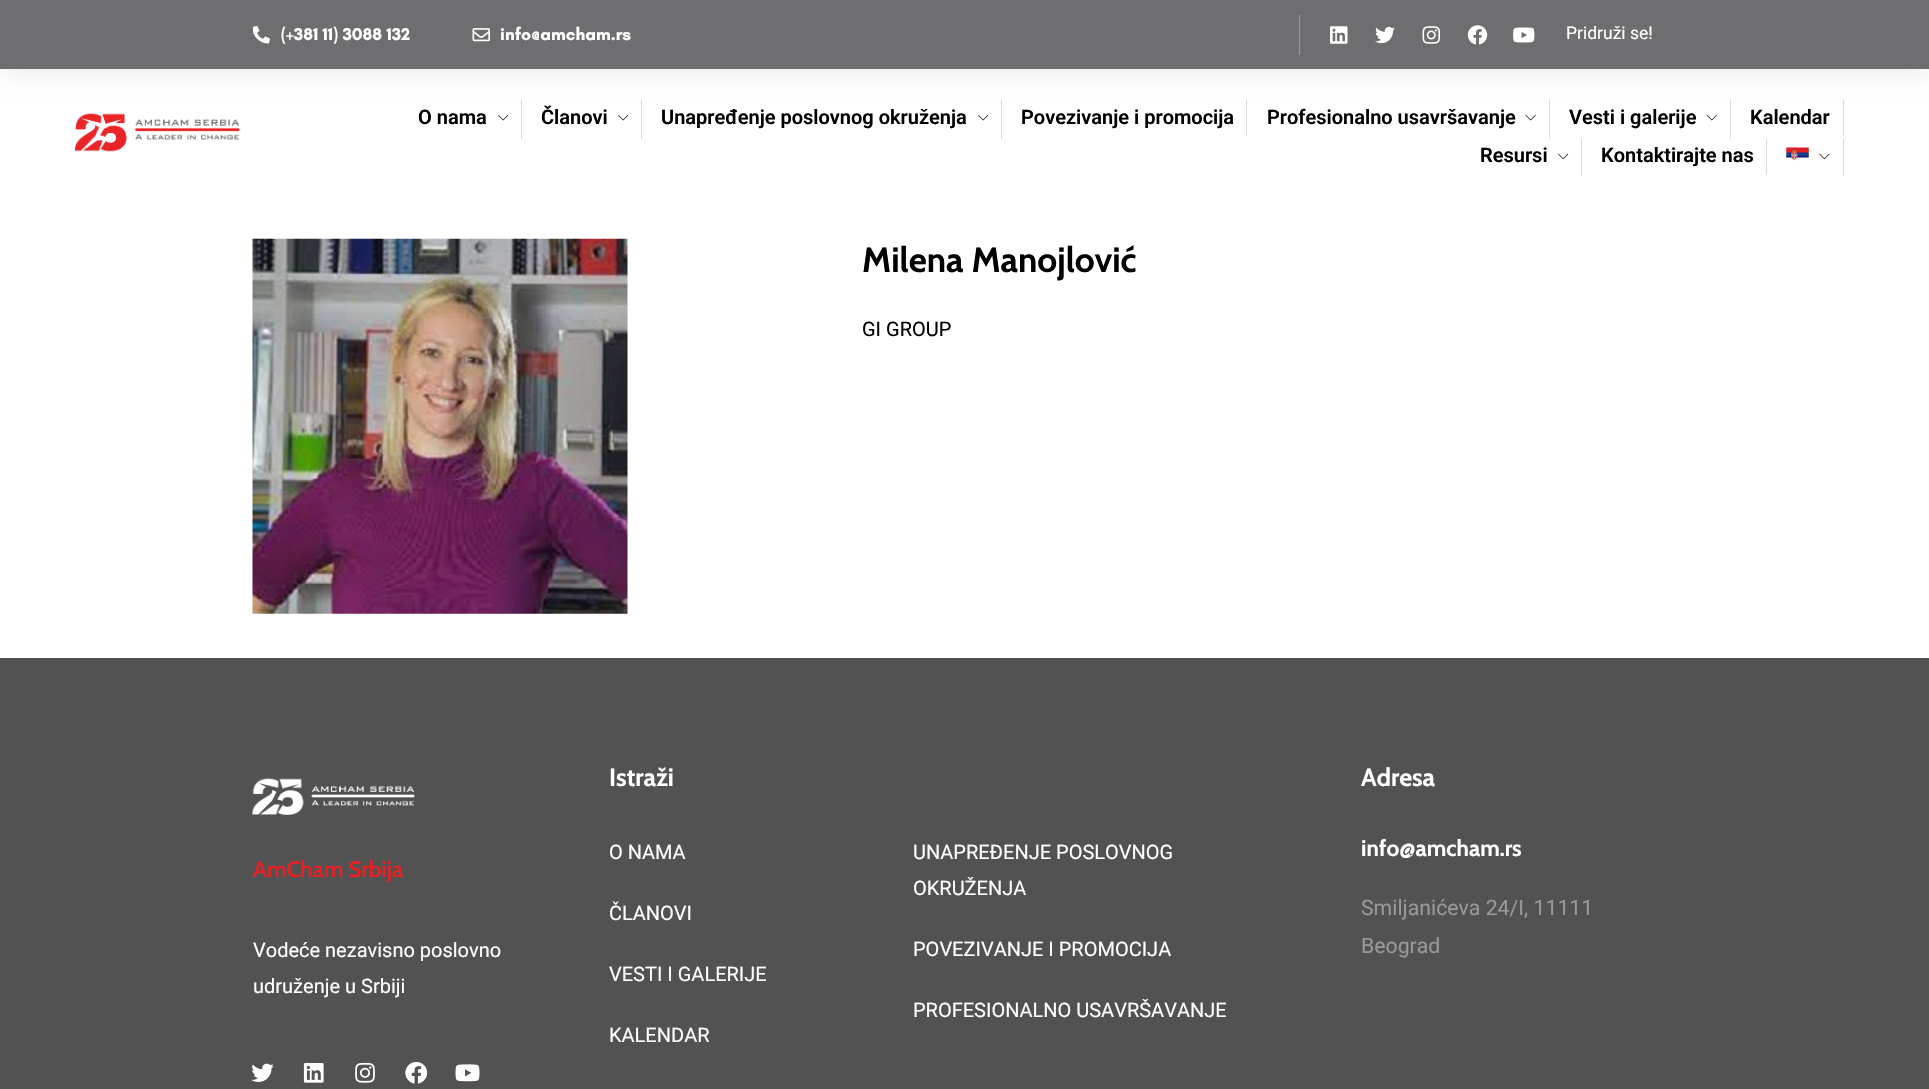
void draw(SkCanvas* canvas) {
    SkPaint paint;
    paint.setAntiAlias(true);
    auto face = [&](const char* family, int weight, float size, bool italic = false) {
        SkFontStyle style(weight, SkFontStyle::kNormal_Width,
            italic ? SkFontStyle::kItalic_Slant : SkFontStyle::kUpright_Slant);
        SkFont result(fontMgr->matchFamilyStyle(family, style), size);
        result.setSubpixel(true);
        return result;
    };
    auto write = [&](const char* s, float x, float y, const SkFont& font, SkColor color) {
        SkPaint ink(SkColor4f::FromColor(color));
        ink.setAntiAlias(true);
        canvas->drawString(s, x, y, font, ink);
    };
    auto block = [&](float x, float y, float w, float h, SkColor color) {
        SkPaint ink(SkColor4f::FromColor(color));
        ink.setAntiAlias(true);
        canvas->drawRect(SkRect::MakeXYWH(x, y, w, h), ink);
    };
    auto paste = [&](const char* path, float x, float y, float w, float h) {
        auto image = SkImages::DeferredFromEncodedData(SkData::MakeFromFileName(path));
        canvas->drawImageRect(image, SkRect::MakeXYWH(x, y, w, h), SkSamplingOptions());
    };
    canvas->clear(SK_ColorWHITE);
    paste("pic8.png", 75, 113, 165, 39);
    block(521, 100, 1, 39, SkColorSetRGB(217, 217, 217));
    paste("pic9.png", 498, 114, 11, 7);
    block(641, 100, 1, 39, SkColorSetRGB(217, 217, 217));
    paste("pic9.png", 618, 114, 11, 7);
    block(1001, 100, 1, 39, SkColorSetRGB(217, 217, 217));
    paste("pic9.png", 978, 114, 11, 7);
    block(1246, 100, 1, 36, SkColorSetRGB(217, 217, 217));
    block(1549, 100, 1, 39, SkColorSetRGB(217, 217, 217));
    paste("pic10.png", 1525, 114, 11, 7);
    block(1730, 100, 1, 39, SkColorSetRGB(217, 217, 217));
    paste("pic11.png", 1706, 114, 11, 7);
    block(1843, 100, 1, 36, SkColorSetRGB(217, 217, 217));
    paint.setColor(SkColorSetARGB(26, 0, 0, 0));
    paint.setMaskFilter(SkMaskFilter::MakeBlur(kNormal_SkBlurStyle, 15));
    canvas->drawRect(SkRect::MakeXYWH(0, 0, 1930, 69), paint);
    paint.setMaskFilter(nullptr);
    block(0, 0, 1929, 69, SkColorSetRGB(110, 110, 112));
    paste("pic1.png", 253, 26, 17, 18);
    auto kFont1 = face("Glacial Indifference", 700, 17.5f);
    write("(+381 11) 3088 132", 281, 40, kFont1, SK_ColorWHITE);
    paste("pic2.png", 472, 28, 18, 14);
    write("info@amcham.rs", 500, 40, kFont1, SK_ColorWHITE);
    block(1299, 15, 1, 40, SkColorSetRGB(154, 154, 155));
    paste("pic3.png", 1330, 26, 18, 18);
    paste("pic4.png", 1375, 26, 20, 18);
    paste("pic5.png", 1422, 26, 18, 18);
    paste("pic6.png", 1467, 25, 21, 20);
    paste("pic7.png", 1513, 27, 22, 16);
    auto kFont2 = face("Roboto", 400, 17.5f);
    write("Pridruži se!", 1566, 39, kFont2, SK_ColorWHITE);
    auto kFont3 = face("Roboto", 600, 20);
    write("O nama", 418, 124, kFont3, SK_ColorBLACK);
    write("Članovi", 541, 124, kFont3, SK_ColorBLACK);
    write("Unapređenje poslovnog okruženja", 661, 124, kFont3, SK_ColorBLACK);
    write("Povezivanje i promocija", 1021, 124, kFont3, SK_ColorBLACK);
    write("Profesionalno usavršavanje", 1267, 124, kFont3, SK_ColorBLACK);
    write("Vesti i galerije", 1569, 124, kFont3, SK_ColorBLACK);
    write("Kalendar", 1750, 124, kFont3, SK_ColorBLACK);
    block(1581, 139, 1, 37, SkColorSetRGB(217, 217, 217));
    write("Resursi", 1480, 162, kFont3, SK_ColorBLACK);
    paste("pic12.png", 1558, 153, 11, 7);
    block(1766, 139, 1, 36, SkColorSetRGB(217, 217, 217));
    write("Kontaktirajte nas", 1601, 162, kFont3, SK_ColorBLACK);
    block(1843, 139, 1, 37, SkColorSetRGB(217, 217, 217));
    paste("pic13.png", 1786, 147, 23, 14);
    paste("pic14.png", 1819, 153, 11, 7);
    paste("pic15.png", 252, 238, 376, 376);
    auto kFont4 = face("Cabin", 700, 35);
    write("Milena Manojlović", 862, 272, kFont4, SK_ColorBLACK);
    auto kFont5 = face("Roboto", 400, 20);
    write("GI GROUP", 862, 336, kFont5, SK_ColorBLACK);
    block(0, 658, 1929, 431, SkColorSetRGB(82, 82, 82));
    paste("pic16.png", 252, 778, 163, 37);
    auto kFont6 = face("Cabin", 600, 22.5f);
    write("AmCham Srbija", 253, 877, kFont6, SkColorSetRGB(235, 30, 35));
    write("Vodeće nezavisno poslovno", 253, 957, kFont5, SK_ColorWHITE);
    write("udruženje u Srbiji", 253, 993, kFont5, SK_ColorWHITE);
    paste("pic17.png", 251, 1063, 23, 19);
    paste("pic18.png", 303, 1063, 21, 20);
    paste("pic19.png", 355, 1062, 20, 21);
    paste("pic20.png", 405, 1061, 23, 23);
    paste("pic21.png", 455, 1064, 25, 18);
    auto kFont7 = face("Cabin", 700, 25);
    write("Istraži", 609, 786, kFont7, SK_ColorWHITE);
    write("O NAMA", 609, 859, kFont5, SK_ColorWHITE);
    write("ČLANOVI", 609, 920, kFont5, SK_ColorWHITE);
    write("VESTI I GALERIJE", 609, 981, kFont5, SK_ColorWHITE);
    write("KALENDAR", 609, 1042, kFont5, SK_ColorWHITE);
    write("UNAPREĐENJE POSLOVNOG", 913, 859, kFont5, SK_ColorWHITE);
    write("OKRUŽENJA", 913, 895, kFont5, SK_ColorWHITE);
    write("POVEZIVANJE I PROMOCIJA", 913, 956, kFont5, SK_ColorWHITE);
    write("PROFESIONALNO USAVRŠAVANJE", 913, 1017, kFont5, SK_ColorWHITE);
    write("Adresa", 1361, 786, kFont7, SK_ColorWHITE);
    auto kFont8 = face("Cabin", 700, 22.5f);
    write("info@amcham.rs", 1361, 856, kFont8, SK_ColorWHITE);
    auto kFont9 = face("Roboto", 400, 21.25f);
    write("Smiljanićeva 24/I, 11111", 1361, 915, kFont9, SkColorSetRGB(153, 153, 153));
    write("Beograd", 1361, 953, kFont9, SkColorSetRGB(153, 153, 153));
}
